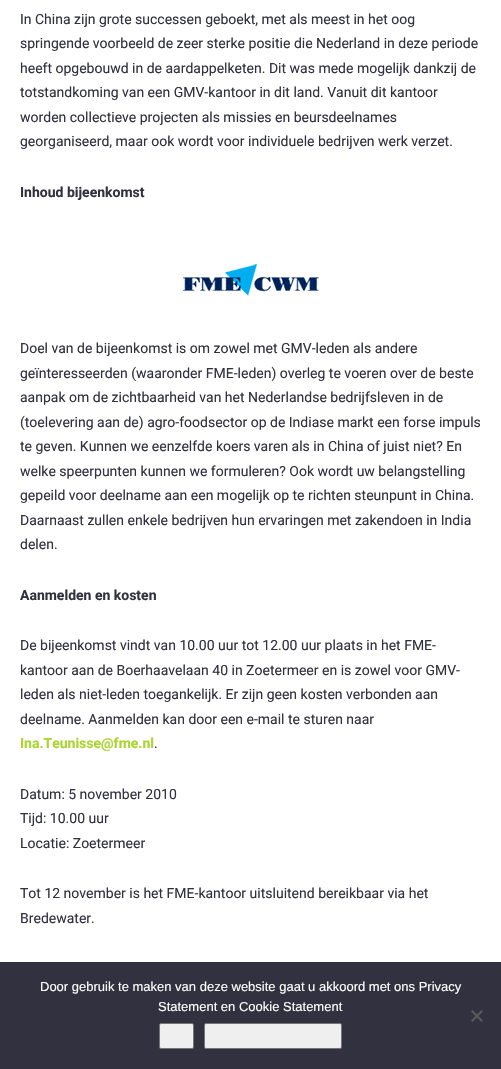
void draw(SkCanvas* canvas) {
    SkPaint paint;
    paint.setAntiAlias(true);
    auto face = [&](const char* family, int weight, float size, bool italic = false) {
        SkFontStyle style(weight, SkFontStyle::kNormal_Width,
            italic ? SkFontStyle::kItalic_Slant : SkFontStyle::kUpright_Slant);
        SkFont result(fontMgr->matchFamilyStyle(family, style), size);
        result.setSubpixel(true);
        return result;
    };
    auto write = [&](const char* s, float x, float y, const SkFont& font, SkColor color) {
        SkPaint ink(SkColor4f::FromColor(color));
        ink.setAntiAlias(true);
        canvas->drawString(s, x, y, font, ink);
    };
    auto block = [&](float x, float y, float w, float h, SkColor color) {
        SkPaint ink(SkColor4f::FromColor(color));
        ink.setAntiAlias(true);
        canvas->drawRect(SkRect::MakeXYWH(x, y, w, h), ink);
    };
    auto paste = [&](const char* path, float x, float y, float w, float h) {
        auto image = SkImages::DeferredFromEncodedData(SkData::MakeFromFileName(path));
        canvas->drawImageRect(image, SkRect::MakeXYWH(x, y, w, h), SkSamplingOptions());
    };
    canvas->clear(SK_ColorWHITE);
    auto kFont1 = face("Roboto", 400, 14);
    write("In China zijn grote successen geboekt, met als meest in het oog", 20, 24, kFont1, SkColorSetRGB(49, 49, 63));
    write("springende voorbeeld de zeer sterke positie die Nederland in deze periode", 20, 48, kFont1, SkColorSetRGB(49, 49, 63));
    write("heeft opgebouwd in de aardappelketen. Dit was mede mogelijk dankzij de", 20, 73, kFont1, SkColorSetRGB(49, 49, 63));
    write("totstandkoming van een GMV-kantoor in dit land. Vanuit dit kantoor", 20, 97, kFont1, SkColorSetRGB(49, 49, 63));
    write("worden collectieve projecten als missies en beursdeelnames", 20, 122, kFont1, SkColorSetRGB(49, 49, 63));
    write("georganiseerd, maar ook wordt voor individuele bedrijven werk verzet.", 20, 146, kFont1, SkColorSetRGB(49, 49, 63));
    auto kFont2 = face("Roboto", 700, 14);
    write("Inhoud bijeenkomst", 20, 197, kFont2, SkColorSetRGB(49, 49, 63));
    paste("pic1.png", 183, 264, 136, 32);
    write("Doel van de bijeenkomst is om zowel met GMV-leden als andere", 20, 353, kFont1, SkColorSetRGB(49, 49, 63));
    write("geïnteresseerden (waaronder FME-leden) overleg te voeren over de beste", 20, 378, kFont1, SkColorSetRGB(49, 49, 63));
    write("aanpak om de zichtbaarheid van het Nederlandse bedrijfsleven in de", 20, 402, kFont1, SkColorSetRGB(49, 49, 63));
    write("(toelevering aan de) agro-foodsector op de Indiase markt een forse impuls", 20, 427, kFont1, SkColorSetRGB(49, 49, 63));
    write("te geven. Kunnen we eenzelfde koers varen als in China of juist niet? En", 20, 451, kFont1, SkColorSetRGB(49, 49, 63));
    write("welke speerpunten kunnen we formuleren? Ook wordt uw belangstelling", 20, 476, kFont1, SkColorSetRGB(49, 49, 63));
    write("gepeild voor deelname aan een mogelijk op te richten steunpunt in China.", 20, 500, kFont1, SkColorSetRGB(49, 49, 63));
    write("Daarnaast zullen enkele bedrijven hun ervaringen met zakendoen in India", 20, 525, kFont1, SkColorSetRGB(49, 49, 63));
    write("delen.", 20, 549, kFont1, SkColorSetRGB(49, 49, 63));
    write("Aanmelden en kosten", 20, 600, kFont2, SkColorSetRGB(49, 49, 63));
    write("De bijeenkomst vindt van 10.00 uur tot 12.00 uur plaats in het FME-", 20, 650, kFont1, SkColorSetRGB(49, 49, 63));
    write("kantoor aan de Boerhaavelaan 40 in Zoetermeer en is zowel voor GMV-", 20, 675, kFont1, SkColorSetRGB(49, 49, 63));
    write("leden als niet-leden toegankelijk. Er zijn geen kosten verbonden aan", 20, 699, kFont1, SkColorSetRGB(49, 49, 63));
    write("deelname. Aanmelden kan door een e-mail te sturen naar", 20, 724, kFont1, SkColorSetRGB(49, 49, 63));
    write("Ina.Teunisse@fme.nl", 20, 748, kFont2, SkColorSetRGB(171, 212, 49));
    write(".", 154, 748, kFont1, SkColorSetRGB(49, 49, 63));
    write("Datum: 5 november 2010", 20, 799, kFont1, SkColorSetRGB(49, 49, 63));
    write("Tijd: 10.00 uur", 20, 823, kFont1, SkColorSetRGB(49, 49, 63));
    write("Locatie: Zoetermeer", 20, 848, kFont1, SkColorSetRGB(49, 49, 63));
    write("Tot 12 november is het FME-kantoor uitsluitend bereikbaar via het", 20, 898, kFont1, SkColorSetRGB(49, 49, 63));
    write("Bredewater.", 20, 923, kFont1, SkColorSetRGB(49, 49, 63));
    block(0, 962, 501, 107, SkColorSetRGB(49, 49, 63));
    auto kFont3 = face("Liberation Sans", 400, 13);
    write("Door gebruik te maken van deze website gaat u akkoord met ons Privacy", 40, 991, kFont3, SK_ColorWHITE);
    write("Statement en Cookie Statement", 158, 1011, kFont3, SK_ColorWHITE);
    paint.setColor(SkColorSetRGB(89, 89, 96));
    canvas->drawPath(SkPathBuilder().moveTo(481.5f, 1010).lineTo(483, 1011.5f).lineTo(472.5f, 1022).lineTo(471, 1020.5f).close().detach(), paint);
    canvas->drawPath(SkPathBuilder().moveTo(471, 1011.5f).lineTo(472.5f, 1010).lineTo(483, 1020.5f).lineTo(481.5f, 1022).close().detach(), paint);
    paint.setColor(SkColorSetRGB(239, 239, 239));
    canvas->drawRoundRect(SkRect::MakeXYWH(159.5f, 1023.5f, 34, 25), 1.5f, 1.5f, paint);
    paint.setStyle(SkPaint::kStroke_Style);
    paint.setStrokeWidth(1);
    paint.setColor(SkColorSetRGB(118, 118, 118));
    canvas->drawRoundRect(SkRect::MakeXYWH(159.5f, 1023.5f, 34, 25), 1.5f, 1.5f, paint);
    paint.setStyle(SkPaint::kFill_Style);
    paint.setColor(SkColorSetRGB(239, 239, 239));
    canvas->drawRoundRect(SkRect::MakeXYWH(204.5f, 1023.5f, 137, 25), 1.5f, 1.5f, paint);
    paint.setStyle(SkPaint::kStroke_Style);
    paint.setColor(SkColorSetRGB(118, 118, 118));
    canvas->drawRoundRect(SkRect::MakeXYWH(204.5f, 1023.5f, 137, 25), 1.5f, 1.5f, paint);
}
